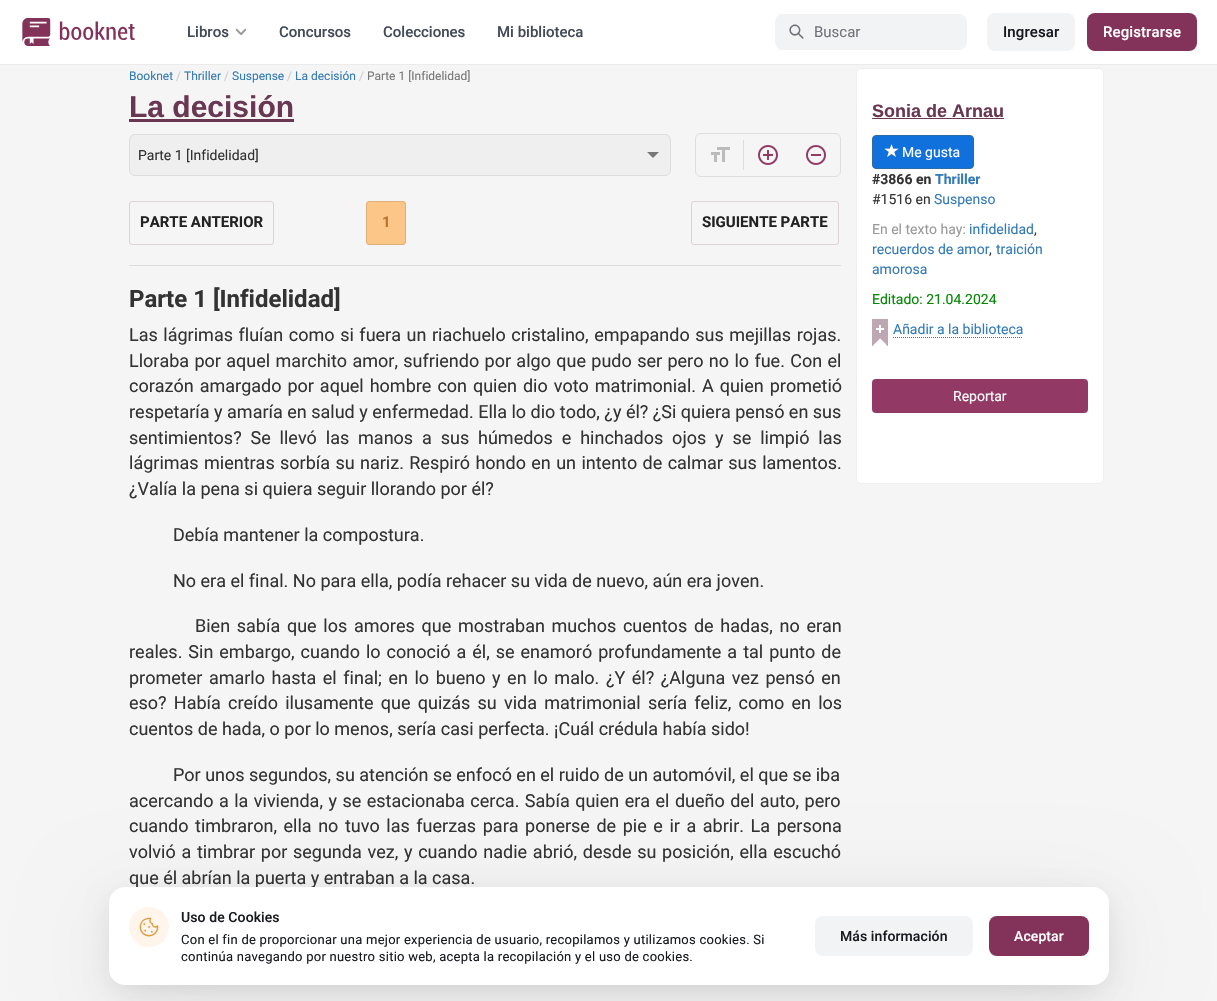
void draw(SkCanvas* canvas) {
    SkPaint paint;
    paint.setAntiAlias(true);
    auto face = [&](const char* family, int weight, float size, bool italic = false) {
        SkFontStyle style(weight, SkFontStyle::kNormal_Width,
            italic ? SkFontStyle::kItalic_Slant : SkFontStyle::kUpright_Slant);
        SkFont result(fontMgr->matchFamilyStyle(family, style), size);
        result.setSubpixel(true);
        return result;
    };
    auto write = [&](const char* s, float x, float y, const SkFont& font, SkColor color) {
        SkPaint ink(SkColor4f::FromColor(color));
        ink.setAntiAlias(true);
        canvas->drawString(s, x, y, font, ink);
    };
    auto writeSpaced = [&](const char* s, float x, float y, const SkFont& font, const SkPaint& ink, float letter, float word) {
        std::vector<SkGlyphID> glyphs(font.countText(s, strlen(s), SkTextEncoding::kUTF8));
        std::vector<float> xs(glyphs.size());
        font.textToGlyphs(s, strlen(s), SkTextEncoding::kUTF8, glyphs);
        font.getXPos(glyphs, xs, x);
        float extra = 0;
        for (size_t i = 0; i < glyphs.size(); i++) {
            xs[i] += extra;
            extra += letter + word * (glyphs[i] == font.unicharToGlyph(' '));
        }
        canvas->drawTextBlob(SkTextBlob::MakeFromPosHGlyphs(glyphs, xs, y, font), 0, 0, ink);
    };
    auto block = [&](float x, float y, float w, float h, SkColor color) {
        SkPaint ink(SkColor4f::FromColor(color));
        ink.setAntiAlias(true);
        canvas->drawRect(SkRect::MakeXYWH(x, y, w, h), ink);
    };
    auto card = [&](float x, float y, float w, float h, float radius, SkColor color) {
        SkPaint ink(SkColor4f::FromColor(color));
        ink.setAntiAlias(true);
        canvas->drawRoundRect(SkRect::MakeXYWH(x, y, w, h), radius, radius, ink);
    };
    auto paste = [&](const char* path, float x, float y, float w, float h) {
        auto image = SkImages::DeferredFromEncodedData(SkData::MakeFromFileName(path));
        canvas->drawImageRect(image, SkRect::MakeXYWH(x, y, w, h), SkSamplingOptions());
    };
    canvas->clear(SkColorSetRGB(245, 245, 245));
    block(0, 0, 1217, 64, SK_ColorWHITE);
    block(0, 64, 1217, 1, SkColorSetRGB(235, 235, 235));
    paste("pic1.png", 22, 18, 113, 28);
    auto kFont1 = face("Roboto", 500, 15);
    write("Libros", 187, 37, kFont1, SkColorSetRGB(66, 73, 87));
    paste("pic2.png", 235, 28, 12, 7);
    write("Concursos", 279, 37, kFont1, SkColorSetRGB(66, 73, 87));
    write("Colecciones", 383, 37, kFont1, SkColorSetRGB(66, 73, 87));
    write("Mi biblioteca", 497, 37, kFont1, SkColorSetRGB(66, 73, 87));
    card(775, 14, 192, 36, 8, SkColorSetRGB(242, 243, 245));
    paste("pic3.png", 789, 24, 15, 15);
    auto kFont2 = face("Roboto", 400, 15);
    write("Buscar", 814, 37, kFont2, SkColorSetRGB(113, 116, 122));
    card(987, 13, 88, 38, 8, SkColorSetRGB(242, 243, 245));
    paint.setColor(SkColorSetRGB(23, 26, 31));
    writeSpaced("Ingresar", 1003, 37, kFont1, paint, 0.1f, 0);
    card(1087, 13, 110, 38, 8, SkColorSetRGB(131, 50, 90));
    paint.setColor(SK_ColorWHITE);
    writeSpaced("Registrarse", 1103, 37, kFont1, paint, 0.1f, 0);
    auto kFont3 = face("Roboto", 400, 12);
    write("Booknet", 129, 80, kFont3, SkColorSetRGB(51, 122, 183));
    write("/", 176, 80, kFont3, SkColorSetRGB(204, 204, 204));
    write("Thriller", 184, 80, kFont3, SkColorSetRGB(51, 122, 183));
    write("/", 224, 80, kFont3, SkColorSetRGB(204, 204, 204));
    write("Suspense", 232, 80, kFont3, SkColorSetRGB(51, 122, 183));
    write("/", 287, 80, kFont3, SkColorSetRGB(204, 204, 204));
    write("La decisión", 295, 80, kFont3, SkColorSetRGB(51, 122, 183));
    write("/", 359, 80, kFont3, SkColorSetRGB(204, 204, 204));
    write("Parte 1 [Infidelidad]", 367, 80, kFont3, SkColorSetRGB(119, 119, 119));
    auto kFont4 = face("Liberation Sans", 700, 30);
    write("La decisión", 129, 117, kFont4, SkColorSetRGB(106, 55, 82));
    block(129, 119, 165, 3, SkColorSetRGB(106, 55, 82));
    paint.setColor(SkColorSetRGB(239, 239, 239));
    canvas->drawRoundRect(SkRect::MakeXYWH(129.5f, 134.5f, 541, 41), 5.5f, 5.5f, paint);
    paint.setStyle(SkPaint::kStroke_Style);
    paint.setStrokeWidth(1);
    paint.setColor(SkColorSetRGB(221, 221, 221));
    canvas->drawRoundRect(SkRect::MakeXYWH(129.5f, 134.5f, 541, 41), 5.5f, 5.5f, paint);
    auto kFont5 = face("Roboto", 400, 14);
    write("Parte 1 [Infidelidad]", 138, 160, kFont5, SkColorSetRGB(51, 51, 51));
    paint.setStyle(SkPaint::kFill_Style);
    paint.setColor(SkColorSetRGB(119, 119, 119));
    canvas->drawPath(SkPathBuilder().moveTo(647, 152).lineTo(659, 152).lineTo(653, 158).close().detach(), paint);
    paint.setStyle(SkPaint::kStroke_Style);
    paint.setColor(SkColorSetRGB(221, 221, 221));
    canvas->drawRoundRect(SkRect::MakeXYWH(695.5f, 133.5f, 145, 43), 5.5f, 5.5f, paint);
    paste("pic4.png", 711, 147, 19, 15);
    block(743, 140, 1, 30, SkColorSetRGB(221, 221, 221));
    paste("pic5.png", 758, 145, 20, 20);
    paste("pic6.png", 806, 145, 20, 20);
    block(129, 265, 712, 1, SkColorSetRGB(221, 221, 221));
    paint.setColor(SkColorSetRGB(224, 209, 214));
    canvas->drawRoundRect(SkRect::MakeXYWH(129.5f, 201.5f, 144, 43), 2.5f, 2.5f, paint);
    auto kFont6 = face("Roboto", 700, 15);
    write("PARTE ANTERIOR", 140, 227, kFont6, SkColorSetRGB(34, 34, 34));
    paint.setStyle(SkPaint::kFill_Style);
    paint.setColor(SkColorSetRGB(253, 198, 137));
    canvas->drawRoundRect(SkRect::MakeXYWH(366.5f, 201.5f, 39, 43), 2.5f, 2.5f, paint);
    paint.setStyle(SkPaint::kStroke_Style);
    paint.setColor(SkColorSetRGB(223, 175, 122));
    canvas->drawRoundRect(SkRect::MakeXYWH(366.5f, 201.5f, 39, 43), 2.5f, 2.5f, paint);
    write("1", 382, 227, kFont6, SkColorSetRGB(187, 115, 44));
    paint.setColor(SkColorSetRGB(224, 209, 214));
    canvas->drawRoundRect(SkRect::MakeXYWH(691.5f, 201.5f, 147, 43), 2.5f, 2.5f, paint);
    write("SIGUIENTE PARTE", 702, 227, kFont6, SkColorSetRGB(34, 34, 34));
    auto kFont7 = face("Roboto", 700, 24);
    write("Parte 1 [Infidelidad]", 129, 307, kFont7, SkColorSetRGB(51, 51, 51));
    auto kFont8 = face("Roboto", 400, 18);
    paint.setStyle(SkPaint::kFill_Style);
    paint.setColor(SkColorSetRGB(51, 51, 51));
    writeSpaced("Las lágrimas fluían como si fuera un riachuelo cristalino, empapando sus mejillas rojas.", 129, 341, kFont8, paint, 0, 1.1f);
    writeSpaced("Lloraba por aquel marchito amor, sufriendo por algo que pudo ser pero no lo fue. Con el", 129, 367, kFont8, paint, 0, 0.9f);
    writeSpaced("corazón amargado por aquel hombre con quien dio voto matrimonial. A quien prometió", 129, 392, kFont8, paint, 0, 1.5f);
    write("respetaría y amaría en salud y enfermedad. Ella lo dio todo, ¿y él? ¿Si quiera pensó en sus", 129, 418, kFont8, SkColorSetRGB(51, 51, 51));
    writeSpaced("sentimientos? Se llevó las manos a sus húmedos e hinchados ojos y se limpió las", 129, 444, kFont8, paint, 0, 4.4f);
    writeSpaced("lágrimas mientras sorbía su nariz. Respiró hondo en un intento de calmar sus lamentos.", 129, 469, kFont8, paint, 0, 0.9f);
    write("¿Valía la pena si quiera seguir llorando por él?", 129, 495, kFont8, SkColorSetRGB(51, 51, 51));
    write("Debía mantener la compostura.", 173, 541, kFont8, SkColorSetRGB(51, 51, 51));
    write("No era el final. No para ella, podía rehacer su vida de nuevo, aún era joven.", 173, 587, kFont8, SkColorSetRGB(51, 51, 51));
    writeSpaced("Bien sabía que los amores que mostraban muchos cuentos de hadas, no eran", 195, 632, kFont8, paint, 0, 2.25f);
    writeSpaced("reales. Sin embargo, cuando lo conoció a él, se enamoró profundamente a tal punto de", 129, 658, kFont8, paint, 0, 1.5f);
    writeSpaced("prometer amarlo hasta el final; en lo bueno y en lo malo. ¿Y él? ¿Alguna vez pensó en", 129, 684, kFont8, paint, 0, 2.1f);
    writeSpaced("eso? Había creído ilusamente que quizás su vida matrimonial sería feliz, como en los", 129, 709, kFont8, paint, 0, 2.75f);
    write("cuentos de hada, o por lo menos, sería casi perfecta. ¡Cuál crédula había sido!", 129, 735, kFont8, SkColorSetRGB(51, 51, 51));
    write("Por unos segundos, su atención se enfocó en el ruido de un automóvil, el que se iba", 173, 781, kFont8, SkColorSetRGB(51, 51, 51));
    writeSpaced("acercando a la vivienda, y se estacionaba cerca. Sabía quien era el dueño del auto, pero", 129, 807, kFont8, paint, 0, 1);
    writeSpaced("cuando timbraron, ella no tuvo las fuerzas para ponerse de pie e ir a abrir. La persona", 129, 832, kFont8, paint, 0, 2.1f);
    writeSpaced("volvió a timbrar por segunda vez, y cuando nadie abrió, desde su posición, ella escuchó", 129, 858, kFont8, paint, 0, 1.25f);
    write("que él abrían la puerta y entraban a la casa.", 129, 884, kFont8, SkColorSetRGB(51, 51, 51));
    paint.setColor(SK_ColorWHITE);
    canvas->drawRoundRect(SkRect::MakeXYWH(856.5f, 68.5f, 247, 415), 4.5f, 4.5f, paint);
    paint.setStyle(SkPaint::kStroke_Style);
    paint.setColor(SkColorSetRGB(238, 238, 238));
    canvas->drawRoundRect(SkRect::MakeXYWH(856.5f, 68.5f, 247, 415), 4.5f, 4.5f, paint);
    auto kFont9 = face("Liberation Sans", 700, 18);
    write("Sonia de Arnau", 872, 117, kFont9, SkColorSetRGB(106, 55, 82));
    block(872, 118, 132, 1, SkColorSetRGB(106, 55, 82));
    paint.setStyle(SkPaint::kFill_Style);
    paint.setColor(SkColorSetRGB(16, 112, 220));
    canvas->drawRoundRect(SkRect::MakeXYWH(872.5f, 135.5f, 101, 33), 3.5f, 3.5f, paint);
    paint.setStyle(SkPaint::kStroke_Style);
    paint.setColor(SkColorSetRGB(46, 109, 164));
    canvas->drawRoundRect(SkRect::MakeXYWH(872.5f, 135.5f, 101, 33), 3.5f, 3.5f, paint);
    paste("pic7.png", 884, 144, 15, 13);
    write("Me gusta", 902, 157, kFont5, SK_ColorWHITE);
    auto kFont10 = face("Roboto", 700, 14);
    write("#3866 en", 872, 184, kFont10, SkColorSetRGB(51, 51, 51));
    write("Thriller", 935, 184, kFont10, SkColorSetRGB(51, 122, 183));
    write("#1516 en", 872, 204, kFont5, SkColorSetRGB(51, 51, 51));
    write("Suspenso", 934, 204, kFont5, SkColorSetRGB(51, 122, 183));
    write("En el texto hay:", 872, 234, kFont5, SkColorSetRGB(153, 153, 153));
    write("infidelidad", 969, 234, kFont5, SkColorSetRGB(51, 122, 183));
    write(",", 1034, 234, kFont5, SkColorSetRGB(51, 51, 51));
    write("recuerdos de amor", 872, 254, kFont5, SkColorSetRGB(51, 122, 183));
    write(",", 989, 254, kFont5, SkColorSetRGB(51, 51, 51));
    write("traición", 996, 254, kFont5, SkColorSetRGB(51, 122, 183));
    write("amorosa", 872, 274, kFont5, SkColorSetRGB(51, 122, 183));
    write("Editado: 21.04.2024", 872, 304, kFont5, SkColorSetRGB(0, 136, 0));
    paste("pic8.png", 872, 319, 16, 27);
    write("Añadir a la biblioteca", 893, 334, kFont5, SkColorSetRGB(51, 122, 183));
    paint.setColor(SkColorSetRGB(51, 122, 183));
    paint.setPathEffect(SkDashPathEffect::Make({{1, 1}}, 0));
    canvas->drawPath(SkPathBuilder().moveTo(893, 337.5f).lineTo(1023, 337.5f).detach(), paint);
    paint.setPathEffect(nullptr);
    card(872, 379, 216, 34, 4, SkColorSetRGB(146, 58, 101));
    write("Reportar", 953, 401, kFont5, SK_ColorWHITE);
    paint.setStyle(SkPaint::kFill_Style);
    paint.setColor(SkColorSetARGB(20, 0, 0, 0));
    paint.setMaskFilter(SkMaskFilter::MakeBlur(kNormal_SkBlurStyle, 44));
    canvas->drawRoundRect(SkRect::MakeXYWH(113, 909, 992, 90), 12, 12, paint);
    paint.setMaskFilter(nullptr);
    paint.setColor(SkColorSetARGB(31, 0, 0, 0));
    paint.setMaskFilter(SkMaskFilter::MakeBlur(kNormal_SkBlurStyle, 14));
    canvas->drawRoundRect(SkRect::MakeXYWH(115, 901, 988, 86), 10, 10, paint);
    paint.setMaskFilter(nullptr);
    card(109, 887, 1000, 98, 16, SK_ColorWHITE);
    paint.setColor(SkColorSetRGB(255, 245, 234));
    canvas->drawCircle(149, 927, 20, paint);
    paste("pic9.png", 139, 917, 20, 20);
    auto kFont11 = face("Roboto", 500, 14);
    paint.setColor(SkColorSetRGB(23, 26, 31));
    writeSpaced("Uso de Cookies", 181, 922, kFont11, paint, 0.1f, 0);
    auto kFont12 = face("Roboto", 400, 13);
    writeSpaced("Con el fin de proporcionar una mejor experiencia de usuario, recopilamos y utilizamos cookies. Si", 181, 944, kFont12, paint, 0.25f, 0);
    writeSpaced("continúa navegando por nuestro sitio web, acepta la recopilación y el uso de cookies.", 181, 961, kFont12, paint, 0.25f, 0);
    card(815, 916, 158, 40, 8, SkColorSetRGB(242, 243, 245));
    writeSpaced("Más información", 840, 941, kFont11, paint, 0.1f, 0);
    card(989, 916, 100, 40, 8, SkColorSetRGB(131, 50, 90));
    paint.setColor(SK_ColorWHITE);
    writeSpaced("Aceptar", 1014, 941, kFont11, paint, 0.1f, 0);
}
